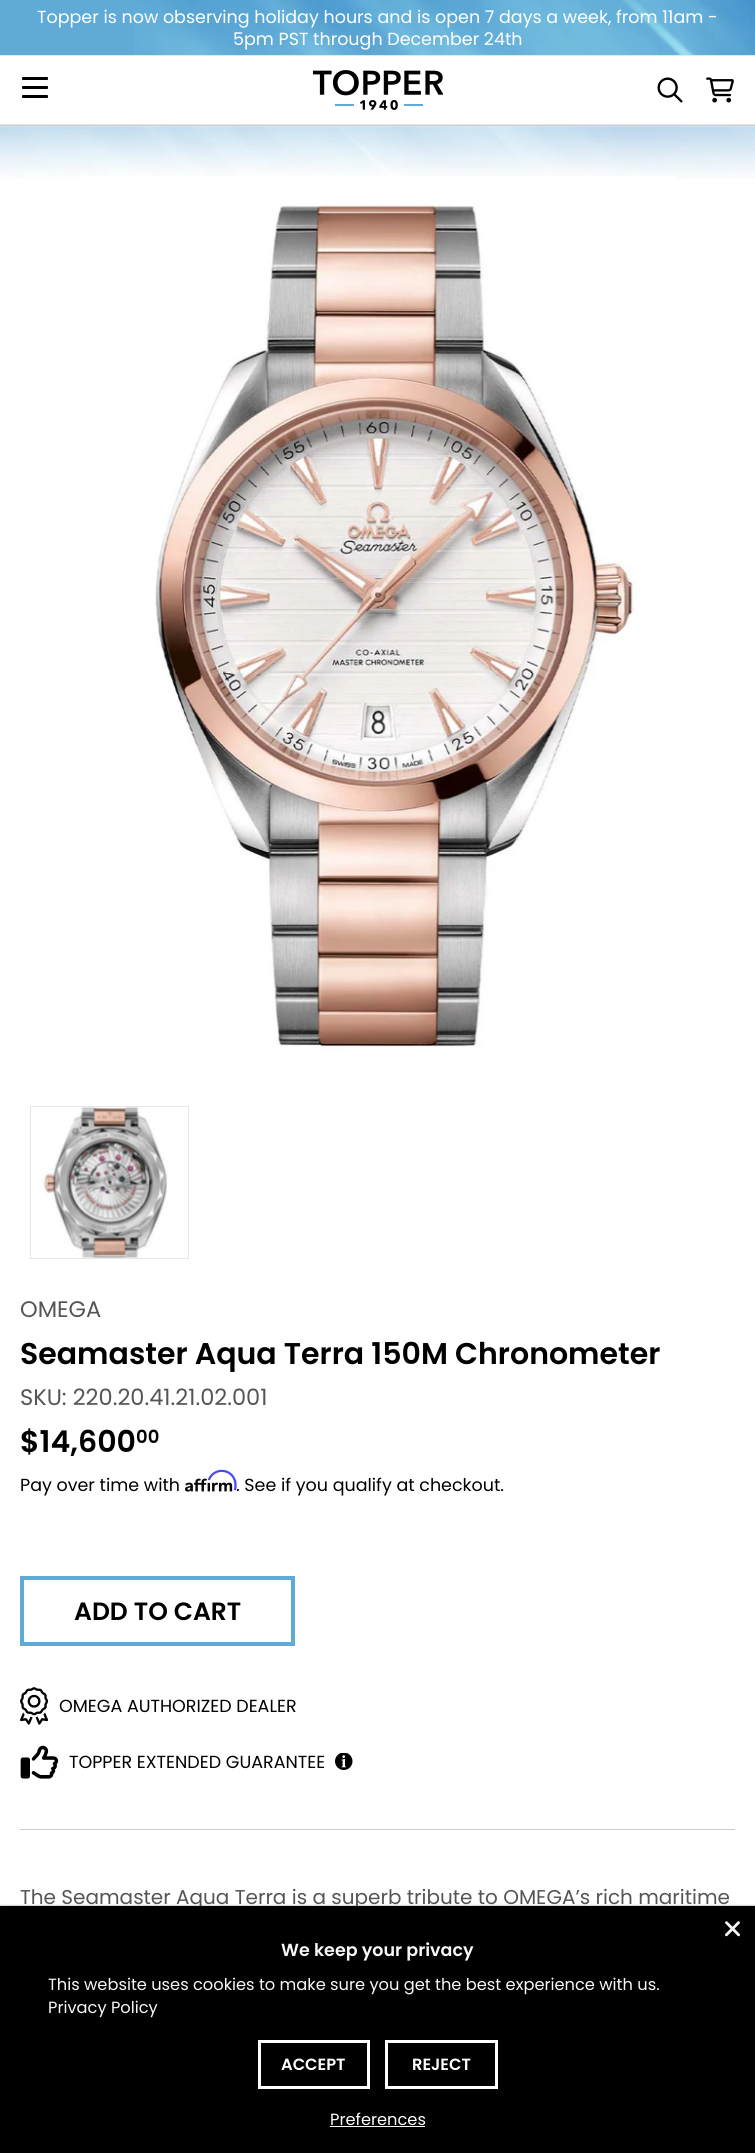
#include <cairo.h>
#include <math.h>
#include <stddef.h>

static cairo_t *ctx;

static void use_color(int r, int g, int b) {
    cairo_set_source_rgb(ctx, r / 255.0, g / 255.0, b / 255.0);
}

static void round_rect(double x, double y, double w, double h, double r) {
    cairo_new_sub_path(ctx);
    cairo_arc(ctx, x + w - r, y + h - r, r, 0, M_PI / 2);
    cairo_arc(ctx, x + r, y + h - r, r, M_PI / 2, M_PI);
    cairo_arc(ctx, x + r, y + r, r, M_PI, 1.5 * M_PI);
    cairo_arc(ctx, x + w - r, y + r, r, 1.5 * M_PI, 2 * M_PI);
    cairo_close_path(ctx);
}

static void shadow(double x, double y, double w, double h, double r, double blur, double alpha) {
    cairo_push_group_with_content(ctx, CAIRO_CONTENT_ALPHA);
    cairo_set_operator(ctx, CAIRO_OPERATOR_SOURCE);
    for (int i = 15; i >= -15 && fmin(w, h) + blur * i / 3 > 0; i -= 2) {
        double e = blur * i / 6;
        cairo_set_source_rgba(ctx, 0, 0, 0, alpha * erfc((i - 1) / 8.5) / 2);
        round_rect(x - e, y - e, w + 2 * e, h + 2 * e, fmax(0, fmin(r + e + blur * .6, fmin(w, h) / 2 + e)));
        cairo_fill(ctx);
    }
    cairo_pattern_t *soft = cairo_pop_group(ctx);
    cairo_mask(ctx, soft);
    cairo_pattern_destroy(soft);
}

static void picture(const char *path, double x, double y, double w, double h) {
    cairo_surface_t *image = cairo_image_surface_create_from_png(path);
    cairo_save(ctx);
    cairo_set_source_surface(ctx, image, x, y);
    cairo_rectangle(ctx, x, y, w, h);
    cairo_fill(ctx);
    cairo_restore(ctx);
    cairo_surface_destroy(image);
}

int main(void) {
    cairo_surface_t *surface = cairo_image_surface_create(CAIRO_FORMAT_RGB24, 755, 2153);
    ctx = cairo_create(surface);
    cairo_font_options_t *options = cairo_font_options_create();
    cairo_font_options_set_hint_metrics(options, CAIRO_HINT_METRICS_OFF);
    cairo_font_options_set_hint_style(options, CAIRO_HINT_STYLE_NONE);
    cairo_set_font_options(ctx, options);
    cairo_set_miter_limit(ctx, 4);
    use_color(255, 255, 255);
    cairo_paint(ctx);
    use_color(95, 170, 215);
    cairo_rectangle(ctx, 0, 0, 134, 55);
    cairo_fill(ctx);
    picture("img1.png", 134, 0, 621, 55);
    cairo_select_font_face(ctx, "Poppins", CAIRO_FONT_SLANT_NORMAL, CAIRO_FONT_WEIGHT_NORMAL);
    cairo_set_font_size(ctx, 17.5);
    use_color(255, 255, 255);
    cairo_move_to(ctx, 37, 23);
    cairo_show_text(ctx, "Topper is now observing holiday hours and is open 7 days a week, from 11am -");
    cairo_move_to(ctx, 233, 45);
    cairo_show_text(ctx, "5pm PST through December 24th");
    use_color(204, 204, 204);
    cairo_rectangle(ctx, 0, 125, 755, 1);
    cairo_fill(ctx);
    use_color(229, 231, 235);
    cairo_rectangle(ctx, 0, 55, 755, 1);
    cairo_fill(ctx);
    cairo_rectangle(ctx, 0, 124, 755, 1);
    cairo_fill(ctx);
    use_color(0, 0, 0);
    round_rect(22, 77, 26, 3, 1);
    cairo_fill(ctx);
    round_rect(22, 86, 26, 3, 1);
    cairo_fill(ctx);
    round_rect(22, 95, 26, 3, 1);
    cairo_fill(ctx);
    picture("img2.png", 313, 70, 130, 40);
    picture("img3.png", 657, 77, 26, 26);
    picture("img4.png", 706, 77, 28, 26);
    picture("img5.png", 0, 126, 755, 53);
    picture("img6.png", 79, 176, 598, 874);
    cairo_rectangle(ctx, 30.5, 1106.5, 158, 152);
    use_color(229, 231, 235);
    cairo_set_line_width(ctx, 1);
    cairo_stroke(ctx);
    picture("img7.png", 43, 1107, 125, 151);
    cairo_set_font_size(ctx, 22.5);
    use_color(85, 85, 85);
    cairo_move_to(ctx, 20, 1317);
    cairo_show_text(ctx, "OMEGA");
    cairo_select_font_face(ctx, "Poppins SemiBold", CAIRO_FONT_SLANT_NORMAL, CAIRO_FONT_WEIGHT_NORMAL);
    cairo_set_font_size(ctx, 30);
    use_color(0, 0, 0);
    cairo_move_to(ctx, 20, 1364);
    cairo_show_text(ctx, "Seamaster Aqua Terra 150M Chronometer");
    cairo_select_font_face(ctx, "Poppins", CAIRO_FONT_SLANT_NORMAL, CAIRO_FONT_WEIGHT_NORMAL);
    cairo_set_font_size(ctx, 22.5);
    use_color(85, 85, 85);
    cairo_move_to(ctx, 20, 1405);
    cairo_show_text(ctx, "SKU: 220.20.41.21.02.001");
    cairo_select_font_face(ctx, "Poppins SemiBold", CAIRO_FONT_SLANT_NORMAL, CAIRO_FONT_WEIGHT_NORMAL);
    cairo_set_font_size(ctx, 30);
    use_color(0, 0, 0);
    cairo_move_to(ctx, 20, 1452);
    cairo_show_text(ctx, "$14,600");
    cairo_set_font_size(ctx, 18);
    cairo_move_to(ctx, 136, 1443);
    cairo_show_text(ctx, "00");
    cairo_select_font_face(ctx, "Poppins", CAIRO_FONT_SLANT_NORMAL, CAIRO_FONT_WEIGHT_NORMAL);
    cairo_set_font_size(ctx, 17.5);
    cairo_move_to(ctx, 20, 1491);
    cairo_show_text(ctx, "Pay over time with");
    picture("img9.png", 185, 1478, 48, 14);
    picture("img8.png", 207, 1469, 30, 22);
    cairo_move_to(ctx, 236, 1491);
    cairo_show_text(ctx, ". See if you qualify at checkout.");
    cairo_rectangle(ctx, 22, 1578, 271, 66);
    use_color(95, 170, 215);
    cairo_set_line_width(ctx, 4);
    cairo_stroke(ctx);
    cairo_select_font_face(ctx, "Poppins SemiBold", CAIRO_FONT_SLANT_NORMAL, CAIRO_FONT_WEIGHT_NORMAL);
    cairo_set_font_size(ctx, 25);
    use_color(0, 0, 0);
    cairo_move_to(ctx, 74, 1620);
    cairo_show_text(ctx, "ADD TO CART");
    picture("img10.png", 20, 1687, 29, 38);
    cairo_select_font_face(ctx, "Poppins", CAIRO_FONT_SLANT_NORMAL, CAIRO_FONT_WEIGHT_NORMAL);
    cairo_set_font_size(ctx, 17.5);
    cairo_move_to(ctx, 59, 1712);
    cairo_show_text(ctx, "OMEGA AUTHORIZED DEALER");
    picture("img11.png", 20, 1745, 39, 34);
    cairo_move_to(ctx, 69, 1768);
    cairo_show_text(ctx, "TOPPER EXTENDED GUARANTEE");
    picture("img12.png", 335, 1753, 18, 17);
    use_color(204, 204, 204);
    cairo_rectangle(ctx, 20, 1829, 715, 1);
    cairo_fill(ctx);
    cairo_set_font_size(ctx, 20);
    use_color(85, 85, 85);
    cairo_move_to(ctx, 20, 1904);
    cairo_show_text(ctx, "The Seamaster Aqua Terra is a superb tribute to OMEGA’s rich maritime");
    use_color(0, 0, 0);
    shadow(0, 1906, 755, 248, 0, 1, 0.5);
    use_color(0, 0, 0);
    cairo_rectangle(ctx, 0, 1906, 755, 247);
    cairo_fill(ctx);
    picture("img13.png", 725, 1921, 15, 16);
    cairo_select_font_face(ctx, "Poppins SemiBold", CAIRO_FONT_SLANT_NORMAL, CAIRO_FONT_WEIGHT_NORMAL);
    cairo_set_font_size(ctx, 17.5);
    use_color(248, 248, 248);
    cairo_move_to(ctx, 281, 1956);
    cairo_show_text(ctx, "We keep your privacy");
    cairo_select_font_face(ctx, "Poppins", CAIRO_FONT_SLANT_NORMAL, CAIRO_FONT_WEIGHT_NORMAL);
    cairo_set_font_size(ctx, 16.25);
    cairo_move_to(ctx, 48, 1990);
    cairo_show_text(ctx, "This website uses cookies to make sure you get the best experience with us.");
    cairo_move_to(ctx, 48, 2013);
    cairo_show_text(ctx, "Privacy Policy");
    cairo_rectangle(ctx, 259.5, 2041.5, 109, 46);
    use_color(255, 255, 255);
    cairo_set_line_width(ctx, 3);
    cairo_stroke(ctx);
    cairo_select_font_face(ctx, "Poppins SemiBold", CAIRO_FONT_SLANT_NORMAL, CAIRO_FONT_WEIGHT_NORMAL);
    cairo_move_to(ctx, 281, 2070);
    cairo_show_text(ctx, "ACCEPT");
    cairo_rectangle(ctx, 386.5, 2041.5, 110, 46);
    cairo_stroke(ctx);
    cairo_move_to(ctx, 412, 2070);
    cairo_show_text(ctx, "REJECT");
    cairo_select_font_face(ctx, "Poppins", CAIRO_FONT_SLANT_NORMAL, CAIRO_FONT_WEIGHT_NORMAL);
    cairo_move_to(ctx, 330, 2125);
    cairo_show_text(ctx, "Preferences");
    cairo_rectangle(ctx, 330, 2126, 95, 1);
    cairo_fill(ctx);
    cairo_surface_write_to_png(surface, "result.png");
    cairo_font_options_destroy(options);
    cairo_destroy(ctx);
    cairo_surface_destroy(surface);
    return 0;
}
